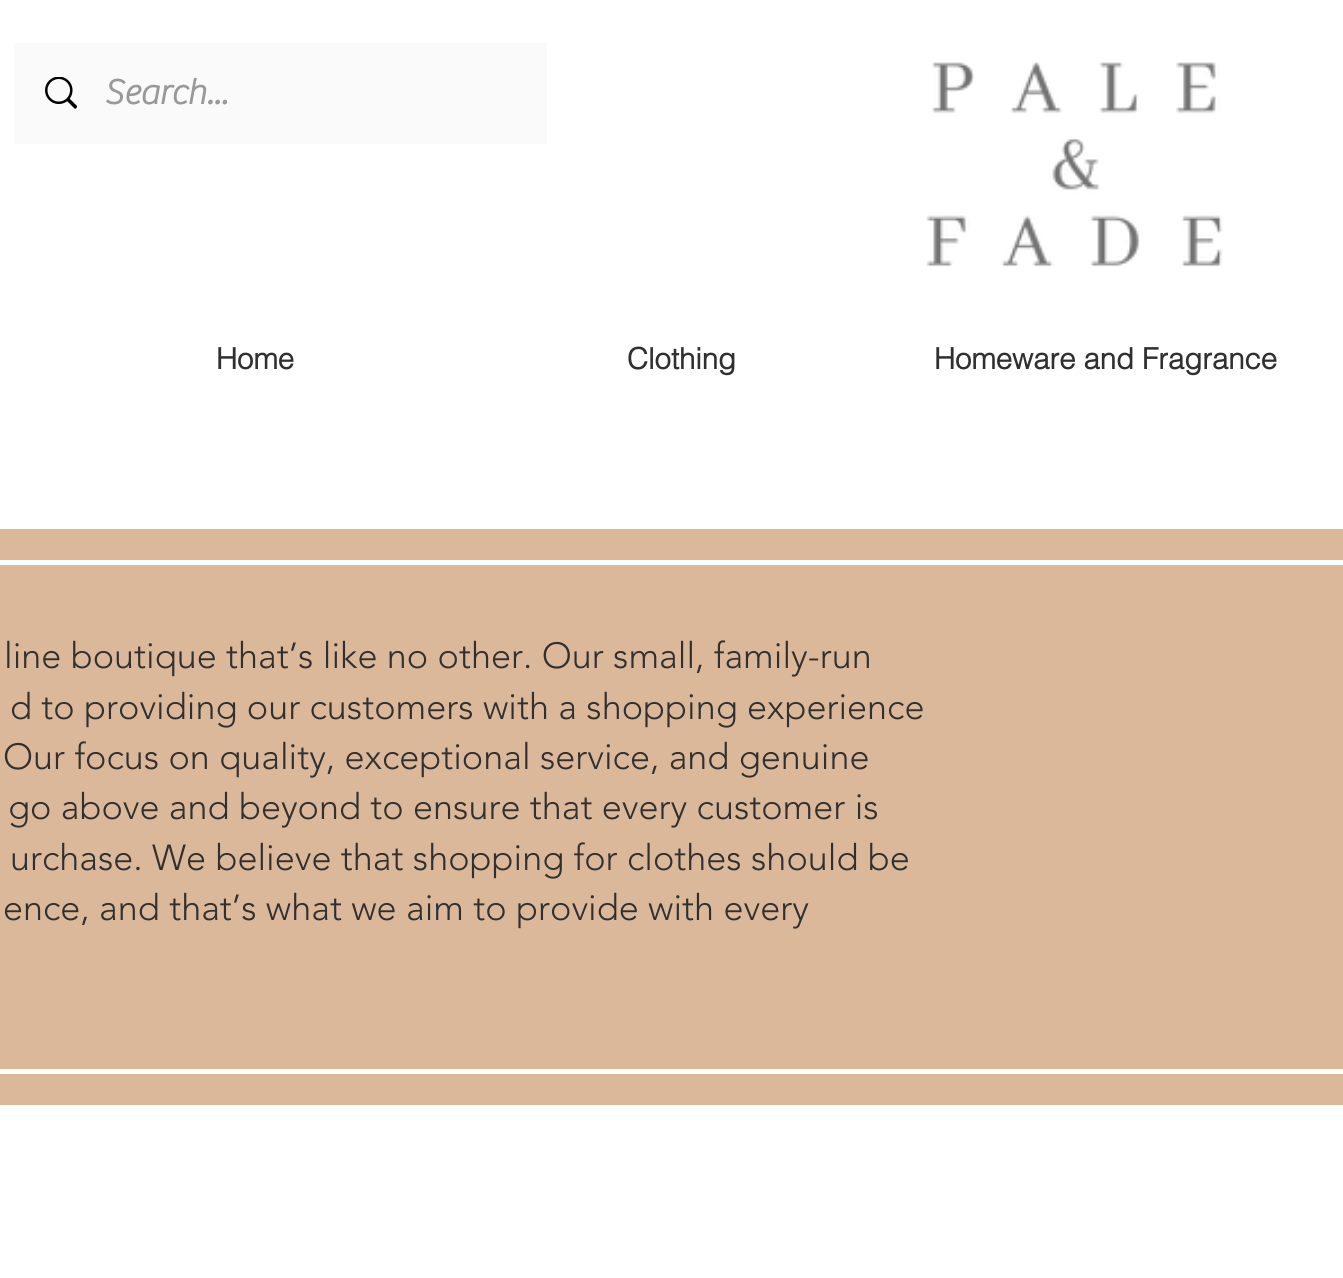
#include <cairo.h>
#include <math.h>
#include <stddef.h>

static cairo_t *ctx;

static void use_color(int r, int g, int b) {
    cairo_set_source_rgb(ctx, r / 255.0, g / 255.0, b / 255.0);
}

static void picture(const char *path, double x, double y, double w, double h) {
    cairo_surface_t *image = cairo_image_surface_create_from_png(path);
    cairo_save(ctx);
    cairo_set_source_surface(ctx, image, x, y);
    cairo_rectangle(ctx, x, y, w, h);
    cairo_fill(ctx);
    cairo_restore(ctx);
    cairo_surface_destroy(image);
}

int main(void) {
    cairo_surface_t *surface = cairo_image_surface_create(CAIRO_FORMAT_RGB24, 1343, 1278);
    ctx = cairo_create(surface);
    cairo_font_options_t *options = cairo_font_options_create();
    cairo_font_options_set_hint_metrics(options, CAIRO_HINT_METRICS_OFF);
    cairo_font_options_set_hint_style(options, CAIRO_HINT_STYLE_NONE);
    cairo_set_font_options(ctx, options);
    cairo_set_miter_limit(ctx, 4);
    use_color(255, 255, 255);
    cairo_paint(ctx);
    use_color(250, 250, 250);
    cairo_rectangle(ctx, 14, 43, 533, 101);
    cairo_fill(ctx);
    picture("img1.png", 45, 77, 32, 32);
    cairo_select_font_face(ctx, "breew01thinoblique", CAIRO_FONT_SLANT_NORMAL, CAIRO_FONT_WEIGHT_BOLD);
    cairo_set_font_size(ctx, 36);
    use_color(153, 153, 153);
    cairo_move_to(ctx, 104, 104);
    cairo_show_text(ctx, "Search...");
    picture("img2.png", 926, 62, 297, 205);
    cairo_select_font_face(ctx, "helvetica", CAIRO_FONT_SLANT_NORMAL, CAIRO_FONT_WEIGHT_BOLD);
    cairo_set_font_size(ctx, 29.25);
    use_color(48, 48, 48);
    cairo_move_to(ctx, 216, 369);
    cairo_show_text(ctx, "Home");
    cairo_move_to(ctx, 627, 369);
    cairo_show_text(ctx, "Clothing");
    cairo_move_to(ctx, 934, 369);
    cairo_show_text(ctx, "Homeware and Fragrance");
    use_color(219, 184, 154);
    cairo_rectangle(ctx, 0, 529, 1343, 576);
    cairo_fill(ctx);
    use_color(255, 255, 255);
    cairo_rectangle(ctx, 0, 560, 1343, 5);
    cairo_fill(ctx);
    cairo_rectangle(ctx, 0, 1069, 1343, 5);
    cairo_fill(ctx);
    cairo_select_font_face(ctx, "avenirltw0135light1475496 Light", CAIRO_FONT_SLANT_NORMAL, CAIRO_FONT_WEIGHT_NORMAL);
    cairo_set_font_size(ctx, 36);
    use_color(48, 48, 48);
    cairo_move_to(ctx, 4, 668);
    cairo_show_text(ctx, "line boutique that’s like no other. Our small, family-run");
    cairo_move_to(ctx, 10, 719);
    cairo_show_text(ctx, "d to providing our customers with a shopping experience");
    cairo_move_to(ctx, 3, 769);
    cairo_show_text(ctx, "Our focus on quality, exceptional service, and genuine");
    cairo_move_to(ctx, 8, 819);
    cairo_show_text(ctx, "go above and beyond to ensure that every customer is");
    cairo_move_to(ctx, 10, 870);
    cairo_show_text(ctx, "urchase. We believe that shopping for clothes should be");
    cairo_move_to(ctx, 3, 920);
    cairo_show_text(ctx, "ence, and that’s what we aim to provide with every");
    cairo_surface_write_to_png(surface, "result.png");
    cairo_font_options_destroy(options);
    cairo_destroy(ctx);
    cairo_surface_destroy(surface);
    return 0;
}
